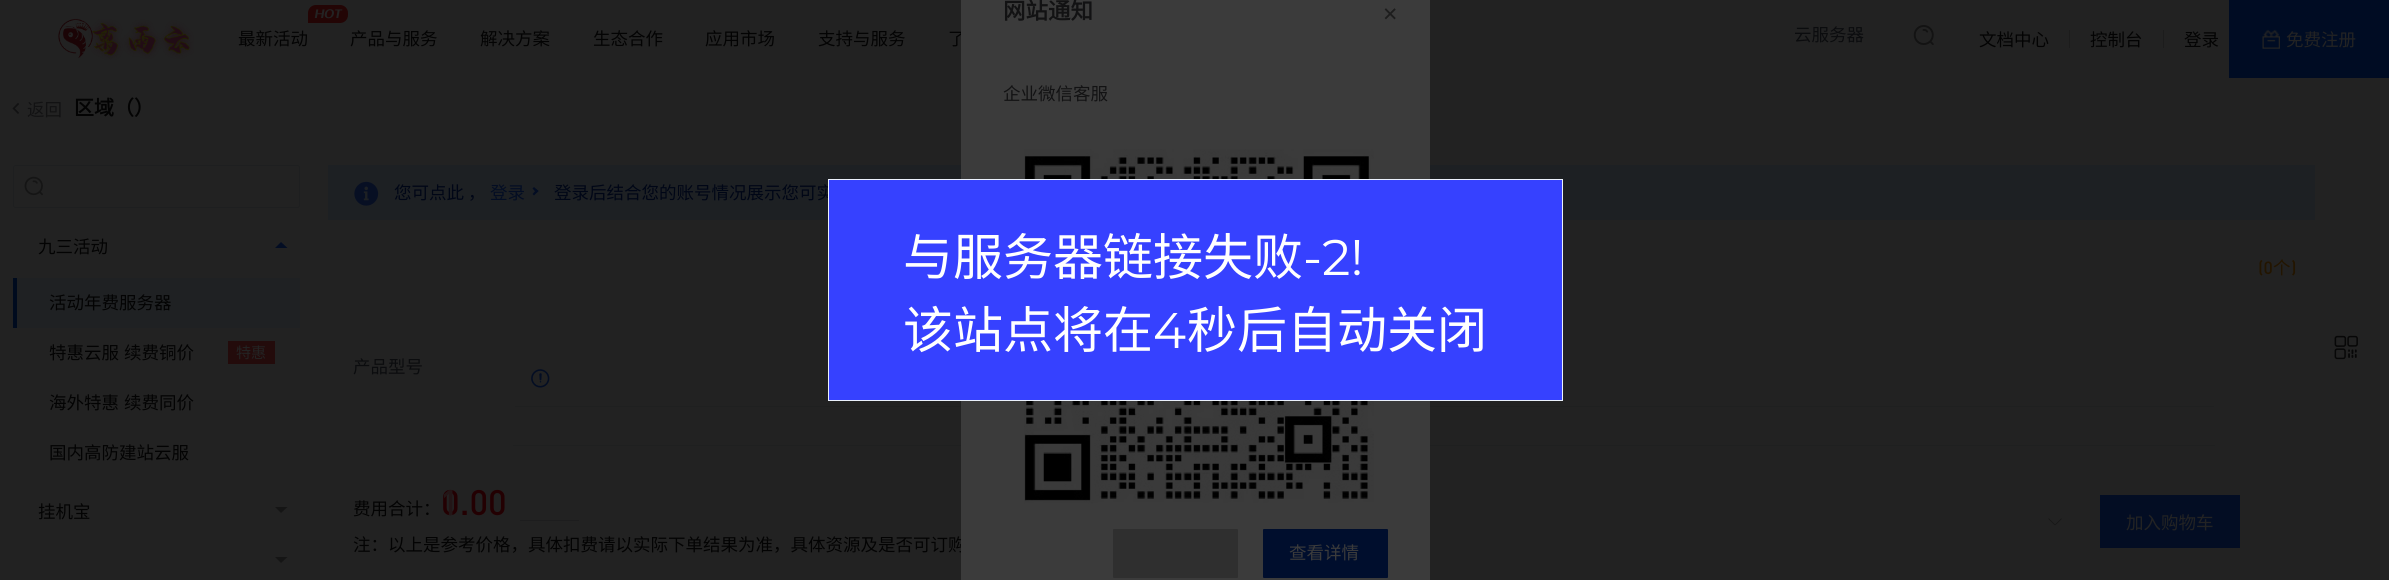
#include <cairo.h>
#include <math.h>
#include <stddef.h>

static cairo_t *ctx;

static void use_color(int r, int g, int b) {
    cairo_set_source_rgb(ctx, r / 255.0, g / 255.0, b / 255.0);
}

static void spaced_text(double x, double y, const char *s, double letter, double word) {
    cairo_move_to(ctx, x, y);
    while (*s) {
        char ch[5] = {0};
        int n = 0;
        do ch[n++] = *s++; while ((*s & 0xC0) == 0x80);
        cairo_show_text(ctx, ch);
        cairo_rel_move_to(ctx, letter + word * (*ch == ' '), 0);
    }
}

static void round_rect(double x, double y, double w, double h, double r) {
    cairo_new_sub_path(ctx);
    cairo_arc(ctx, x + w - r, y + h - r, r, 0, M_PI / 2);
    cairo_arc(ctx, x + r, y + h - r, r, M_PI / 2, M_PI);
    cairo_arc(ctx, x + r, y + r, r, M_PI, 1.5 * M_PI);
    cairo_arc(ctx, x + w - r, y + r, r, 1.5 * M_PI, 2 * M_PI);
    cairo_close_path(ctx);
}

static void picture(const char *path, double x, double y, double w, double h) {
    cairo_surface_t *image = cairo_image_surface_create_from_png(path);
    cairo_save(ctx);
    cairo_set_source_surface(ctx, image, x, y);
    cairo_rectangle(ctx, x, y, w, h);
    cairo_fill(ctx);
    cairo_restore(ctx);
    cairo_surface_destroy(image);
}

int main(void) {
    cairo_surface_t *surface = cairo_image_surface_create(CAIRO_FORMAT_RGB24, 2389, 580);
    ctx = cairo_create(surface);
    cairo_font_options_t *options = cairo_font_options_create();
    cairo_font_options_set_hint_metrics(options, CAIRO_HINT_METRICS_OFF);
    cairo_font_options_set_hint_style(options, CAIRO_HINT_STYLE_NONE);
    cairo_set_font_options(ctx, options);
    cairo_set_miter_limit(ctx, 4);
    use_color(34, 34, 34);
    cairo_paint(ctx);
    cairo_select_font_face(ctx, "Noto Sans CJK SC", CAIRO_FONT_SLANT_NORMAL, CAIRO_FONT_WEIGHT_NORMAL);
    cairo_set_font_size(ctx, 17.5);
    use_color(3, 3, 3);
    cairo_move_to(ctx, 948, 45);
    cairo_show_text(ctx, "了");
    use_color(29, 32, 35);
    cairo_rectangle(ctx, 328, 165, 1987, 55);
    cairo_fill(ctx);
    use_color(31, 32, 32);
    cairo_rectangle(ctx, 515, 406, 1699, 1);
    cairo_fill(ctx);
    cairo_rectangle(ctx, 513, 445, 1702, 1);
    cairo_fill(ctx);
    use_color(3, 3, 3);
    cairo_move_to(ctx, 353, 551);
    cairo_show_text(ctx, "注：以上是参考价格，具体扣费请以实际下单结果为准，具体资源及是否可订购");
    use_color(59, 59, 59);
    cairo_rectangle(ctx, 961, 0, 469, 580);
    cairo_fill(ctx);
    cairo_select_font_face(ctx, "Noto Sans CJK SC", CAIRO_FONT_SLANT_NORMAL, CAIRO_FONT_WEIGHT_BOLD);
    cairo_set_font_size(ctx, 22.5);
    use_color(18, 18, 19);
    cairo_move_to(ctx, 1003, 19);
    cairo_show_text(ctx, "网站通知");
    cairo_select_font_face(ctx, "Montserrat", CAIRO_FONT_SLANT_NORMAL, CAIRO_FONT_WEIGHT_NORMAL);
    cairo_set_font_size(ctx, 32);
    use_color(29, 29, 29);
    cairo_move_to(ctx, 1381, 25);
    cairo_show_text(ctx, "×");
    cairo_select_font_face(ctx, "Noto Sans CJK SC", CAIRO_FONT_SLANT_NORMAL, CAIRO_FONT_WEIGHT_NORMAL);
    cairo_set_font_size(ctx, 17.5);
    use_color(18, 18, 19);
    cairo_move_to(ctx, 1003, 100);
    cairo_show_text(ctx, "企业微信客服");
    picture("img1.png", 1024, 149, 350, 355);
    use_color(47, 47, 47);
    round_rect(1113, 529, 125, 49, 1);
    cairo_fill(ctx);
    use_color(0, 14, 45);
    round_rect(1263, 529, 125, 49, 1);
    cairo_fill(ctx);
    use_color(59, 59, 59);
    cairo_move_to(ctx, 1289, 559);
    cairo_show_text(ctx, "查看详情");
    picture("img2.png", 58, 18, 136, 42);
    use_color(35, 5, 5);
    cairo_new_path(ctx);
    cairo_move_to(ctx, 316, 5);
    cairo_line_to(ctx, 340, 5);
    cairo_curve_to(ctx, 344.5, 5, 348, 8.5, 348, 13);
    cairo_line_to(ctx, 348, 15);
    cairo_curve_to(ctx, 348, 19.5, 344.5, 23, 340, 23);
    cairo_line_to(ctx, 308, 23);
    cairo_line_to(ctx, 308, 13);
    cairo_curve_to(ctx, 308, 8.5, 311.5, 5, 316, 5);
    cairo_close_path(ctx);
    cairo_fill(ctx);
    cairo_select_font_face(ctx, "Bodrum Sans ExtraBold", CAIRO_FONT_SLANT_ITALIC, CAIRO_FONT_WEIGHT_NORMAL);
    cairo_set_font_size(ctx, 12.5);
    use_color(35, 35, 35);
    cairo_move_to(ctx, 314, 18);
    cairo_show_text(ctx, "HOT");
    cairo_select_font_face(ctx, "Noto Sans CJK SC", CAIRO_FONT_SLANT_NORMAL, CAIRO_FONT_WEIGHT_NORMAL);
    cairo_set_font_size(ctx, 17.5);
    use_color(3, 3, 3);
    cairo_move_to(ctx, 238, 45);
    cairo_show_text(ctx, "最新活动");
    cairo_move_to(ctx, 350, 45);
    cairo_show_text(ctx, "产品与服务");
    cairo_move_to(ctx, 480, 45);
    cairo_show_text(ctx, "解决方案");
    cairo_move_to(ctx, 593, 45);
    cairo_show_text(ctx, "生态合作");
    cairo_move_to(ctx, 705, 45);
    cairo_show_text(ctx, "应用市场");
    cairo_move_to(ctx, 818, 45);
    cairo_show_text(ctx, "支持与服务");
    use_color(11, 12, 14);
    cairo_move_to(ctx, 1794, 41);
    cairo_show_text(ctx, "云服务器");
    picture("img3.png", 1913, 25, 21, 20);
    use_color(3, 3, 3);
    cairo_move_to(ctx, 1979, 46);
    cairo_show_text(ctx, "文档中心");
    use_color(28, 28, 28);
    cairo_rectangle(ctx, 2069, 30, 1, 18);
    cairo_fill(ctx);
    use_color(3, 3, 3);
    cairo_move_to(ctx, 2090, 46);
    cairo_show_text(ctx, "控制台");
    use_color(28, 28, 28);
    cairo_rectangle(ctx, 2163, 30, 1, 18);
    cairo_fill(ctx);
    use_color(3, 3, 3);
    cairo_move_to(ctx, 2184, 46);
    cairo_show_text(ctx, "登录");
    use_color(0, 12, 35);
    cairo_rectangle(ctx, 2229, 0, 160, 78);
    cairo_fill(ctx);
    picture("img4.png", 2262, 29, 18, 20);
    use_color(35, 35, 35);
    cairo_move_to(ctx, 2286, 46);
    cairo_show_text(ctx, "免费注册");
    picture("img5.png", 12, 103, 7, 11);
    use_color(18, 18, 19);
    cairo_move_to(ctx, 27, 116);
    cairo_show_text(ctx, "返回");
    cairo_select_font_face(ctx, "Noto Sans CJK SC", CAIRO_FONT_SLANT_NORMAL, CAIRO_FONT_WEIGHT_BOLD);
    cairo_set_font_size(ctx, 20);
    use_color(3, 3, 3);
    cairo_move_to(ctx, 74, 115);
    cairo_show_text(ctx, "区域（）");
    round_rect(13.5, 165.5, 286, 42, 2);
    use_color(30, 31, 32);
    cairo_set_line_width(ctx, 1);
    cairo_stroke(ctx);
    picture("img6.png", 24, 176, 19, 20);
    cairo_select_font_face(ctx, "Noto Sans CJK SC", CAIRO_FONT_SLANT_NORMAL, CAIRO_FONT_WEIGHT_NORMAL);
    cairo_set_font_size(ctx, 17.5);
    use_color(3, 3, 3);
    cairo_move_to(ctx, 38, 253);
    cairo_show_text(ctx, "九三活动");
    use_color(3, 13, 35);
    cairo_new_path(ctx);
    cairo_move_to(ctx, 287.5, 248);
    cairo_line_to(ctx, 275, 248);
    cairo_line_to(ctx, 281, 242);
    cairo_close_path(ctx);
    cairo_fill(ctx);
    use_color(31, 33, 35);
    cairo_rectangle(ctx, 17, 278, 283, 50);
    cairo_fill(ctx);
    use_color(0, 11, 30);
    cairo_rectangle(ctx, 13, 278, 4, 50);
    cairo_fill(ctx);
    use_color(3, 3, 3);
    cairo_move_to(ctx, 49, 309);
    cairo_show_text(ctx, "活动年费服务器");
    spaced_text(49, 359, "特惠云服 续费铜价", 0, 1);
    use_color(35, 11, 11);
    cairo_rectangle(ctx, 228, 341, 47, 23);
    cairo_fill(ctx);
    cairo_set_font_size(ctx, 15);
    use_color(35, 35, 35);
    cairo_move_to(ctx, 236, 358);
    cairo_show_text(ctx, "特惠");
    cairo_set_font_size(ctx, 17.5);
    use_color(3, 3, 3);
    spaced_text(49, 409, "海外特惠 续费同价", 0, 1);
    cairo_move_to(ctx, 49, 459);
    cairo_show_text(ctx, "国内高防建站云服");
    cairo_move_to(ctx, 38, 518);
    cairo_show_text(ctx, "挂机宝");
    use_color(21, 21, 21);
    cairo_new_path(ctx);
    cairo_move_to(ctx, 275, 507);
    cairo_line_to(ctx, 287.5, 507);
    cairo_line_to(ctx, 281, 513);
    cairo_close_path(ctx);
    cairo_move_to(ctx, 275, 557);
    cairo_line_to(ctx, 287.5, 557);
    cairo_line_to(ctx, 281, 563);
    cairo_close_path(ctx);
    cairo_fill(ctx);
    picture("img7.png", 354, 181, 25, 25);
    use_color(0, 6, 22);
    cairo_move_to(ctx, 394, 199);
    cairo_show_text(ctx, "您可点此 ，");
    use_color(3, 13, 35);
    cairo_move_to(ctx, 490, 199);
    cairo_show_text(ctx, "登录");
    cairo_new_path(ctx);
    cairo_move_to(ctx, 532.5, 188.5);
    cairo_line_to(ctx, 534, 187);
    cairo_line_to(ctx, 538.5, 191);
    cairo_line_to(ctx, 536.5, 193);
    cairo_close_path(ctx);
    cairo_fill(ctx);
    cairo_new_path(ctx);
    cairo_move_to(ctx, 532.5, 194);
    cairo_line_to(ctx, 536.5, 189.5);
    cairo_line_to(ctx, 538.5, 191);
    cairo_line_to(ctx, 534, 195.5);
    cairo_close_path(ctx);
    cairo_fill(ctx);
    use_color(0, 6, 22);
    cairo_move_to(ctx, 554, 199);
    cairo_show_text(ctx, "登录后结合您的账号情况展示您可实");
    cairo_select_font_face(ctx, "DIN Medium", CAIRO_FONT_SLANT_NORMAL, CAIRO_FONT_WEIGHT_NORMAL);
    use_color(35, 21, 0);
    cairo_move_to(ctx, 2258, 274);
    cairo_show_text(ctx, "(0");
    cairo_select_font_face(ctx, "Noto Sans CJK SC", CAIRO_FONT_SLANT_NORMAL, CAIRO_FONT_WEIGHT_NORMAL);
    cairo_move_to(ctx, 2273, 274);
    cairo_show_text(ctx, "个");
    cairo_select_font_face(ctx, "DIN Medium", CAIRO_FONT_SLANT_NORMAL, CAIRO_FONT_WEIGHT_NORMAL);
    cairo_move_to(ctx, 2291, 274);
    cairo_show_text(ctx, ")");
    cairo_select_font_face(ctx, "Noto Sans CJK SC", CAIRO_FONT_SLANT_NORMAL, CAIRO_FONT_WEIGHT_NORMAL);
    use_color(11, 12, 14);
    cairo_move_to(ctx, 353, 373);
    cairo_show_text(ctx, "产品型号");
    picture("img8.png", 531, 369, 19, 19);
    cairo_select_font_face(ctx, "DIN Medium", CAIRO_FONT_SLANT_NORMAL, CAIRO_FONT_WEIGHT_NORMAL);
    cairo_set_font_size(ctx, 35);
    use_color(35, 0, 2);
    cairo_move_to(ctx, 441, 515);
    cairo_show_text(ctx, "0.00");
    cairo_select_font_face(ctx, "Noto Sans CJK SC", CAIRO_FONT_SLANT_NORMAL, CAIRO_FONT_WEIGHT_NORMAL);
    cairo_set_font_size(ctx, 17.5);
    use_color(3, 3, 3);
    cairo_move_to(ctx, 353, 515);
    cairo_show_text(ctx, "费用合计：");
    cairo_select_font_face(ctx, "DIN Medium", CAIRO_FONT_SLANT_NORMAL, CAIRO_FONT_WEIGHT_NORMAL);
    cairo_set_font_size(ctx, 35);
    use_color(35, 22, 23);
    cairo_move_to(ctx, 440, 515);
    cairo_show_text(ctx, "1");
    use_color(29, 29, 30);
    cairo_rectangle(ctx, 520, 520, 59, 1);
    cairo_fill(ctx);
    picture("img9.png", 2048, 518, 14, 8);
    use_color(3, 13, 35);
    cairo_rectangle(ctx, 2100, 495, 140, 53);
    cairo_fill(ctx);
    cairo_select_font_face(ctx, "Noto Sans CJK SC", CAIRO_FONT_SLANT_NORMAL, CAIRO_FONT_WEIGHT_NORMAL);
    cairo_set_font_size(ctx, 17.5);
    use_color(35, 35, 35);
    cairo_move_to(ctx, 2126, 529);
    cairo_show_text(ctx, "加入购物车");
    use_color(54, 65, 255);
    cairo_rectangle(ctx, 828.5, 179.5, 734, 221);
    cairo_fill_preserve(ctx);
    use_color(235, 241, 252);
    cairo_stroke(ctx);
    cairo_set_font_size(ctx, 50);
    use_color(255, 255, 255);
    cairo_move_to(ctx, 903, 275);
    cairo_show_text(ctx, "与服务器链接失败");
    cairo_select_font_face(ctx, "Montserrat", CAIRO_FONT_SLANT_NORMAL, CAIRO_FONT_WEIGHT_NORMAL);
    cairo_move_to(ctx, 1303, 275);
    cairo_show_text(ctx, "-2!");
    cairo_select_font_face(ctx, "Noto Sans CJK SC", CAIRO_FONT_SLANT_NORMAL, CAIRO_FONT_WEIGHT_NORMAL);
    cairo_move_to(ctx, 903, 348);
    cairo_show_text(ctx, "该站点将在");
    cairo_select_font_face(ctx, "Montserrat", CAIRO_FONT_SLANT_NORMAL, CAIRO_FONT_WEIGHT_NORMAL);
    cairo_move_to(ctx, 1153, 348);
    cairo_show_text(ctx, "4");
    cairo_select_font_face(ctx, "Noto Sans CJK SC", CAIRO_FONT_SLANT_NORMAL, CAIRO_FONT_WEIGHT_NORMAL);
    cairo_move_to(ctx, 1187, 348);
    cairo_show_text(ctx, "秒后自动关闭");
    picture("img10.png", 2334, 335, 24, 25);
    cairo_surface_write_to_png(surface, "result.png");
    cairo_font_options_destroy(options);
    cairo_destroy(ctx);
    cairo_surface_destroy(surface);
    return 0;
}
